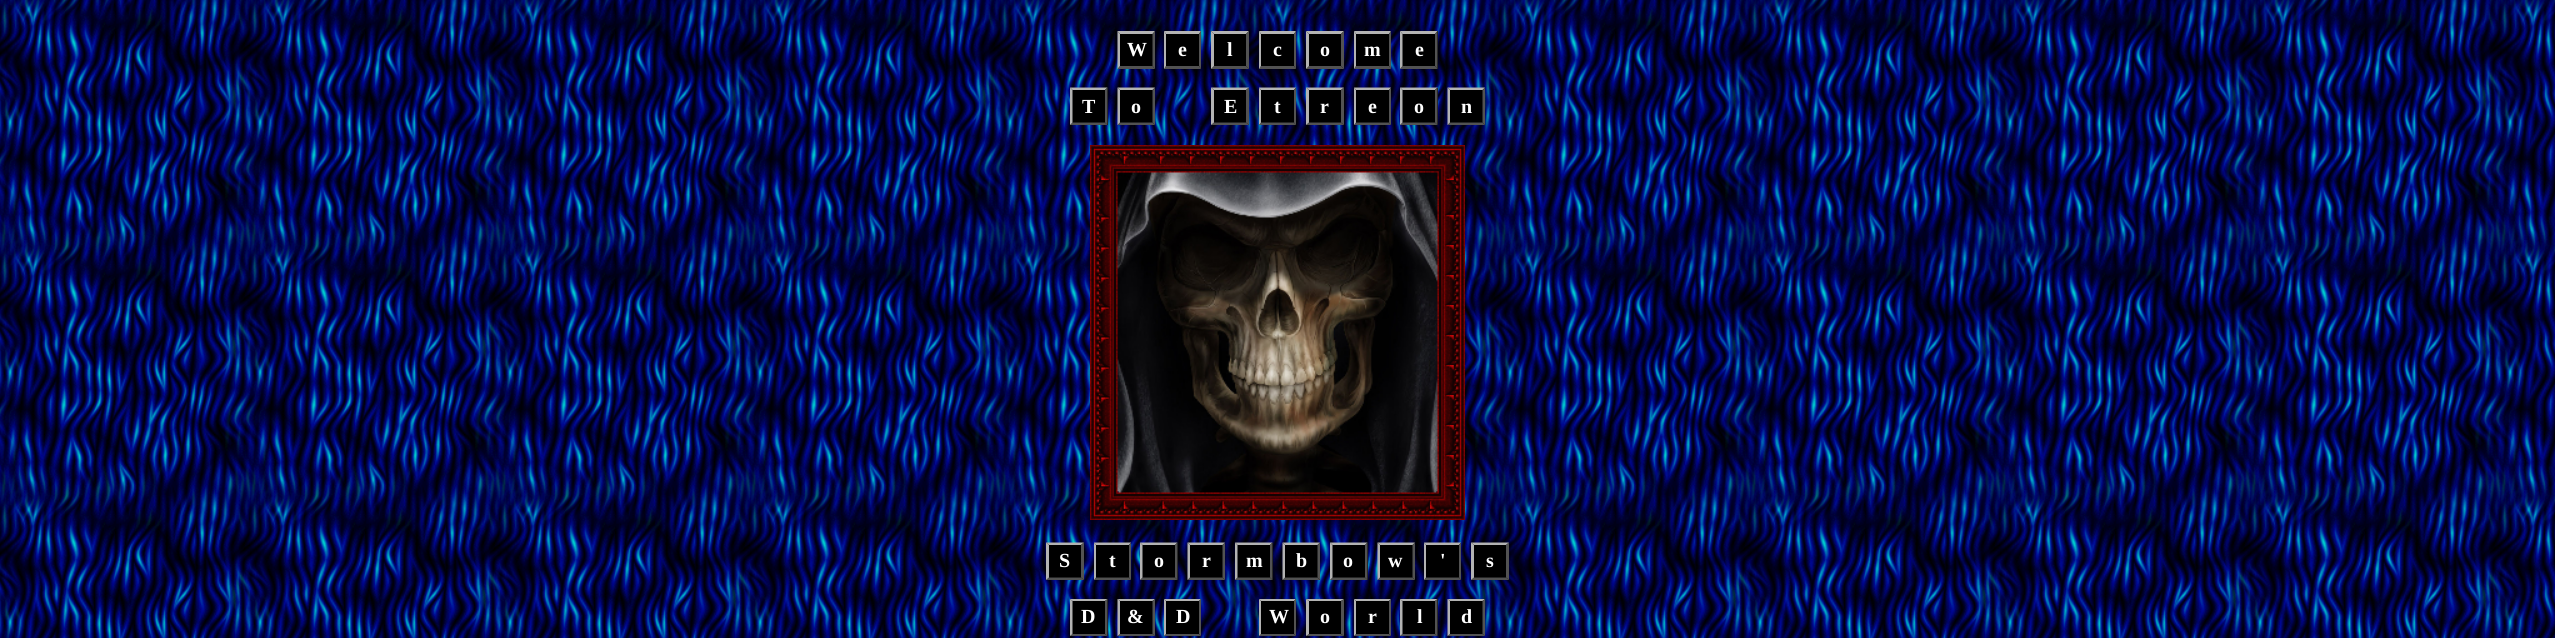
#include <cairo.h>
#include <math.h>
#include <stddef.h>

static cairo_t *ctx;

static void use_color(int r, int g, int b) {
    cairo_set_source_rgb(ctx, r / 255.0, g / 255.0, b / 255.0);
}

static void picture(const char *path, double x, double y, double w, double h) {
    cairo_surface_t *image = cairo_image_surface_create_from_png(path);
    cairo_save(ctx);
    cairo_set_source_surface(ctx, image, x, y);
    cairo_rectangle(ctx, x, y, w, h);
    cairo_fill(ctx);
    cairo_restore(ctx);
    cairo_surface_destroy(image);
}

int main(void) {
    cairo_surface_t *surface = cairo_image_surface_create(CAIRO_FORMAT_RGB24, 2555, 638);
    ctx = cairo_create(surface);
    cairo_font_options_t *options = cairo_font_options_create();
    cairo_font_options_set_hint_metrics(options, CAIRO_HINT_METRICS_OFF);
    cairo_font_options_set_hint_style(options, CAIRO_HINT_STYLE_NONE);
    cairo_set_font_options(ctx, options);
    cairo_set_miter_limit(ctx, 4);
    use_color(255, 255, 255);
    cairo_paint(ctx);
    picture("img1.png", 0, 0, 2555, 638);
    use_color(0, 0, 0);
    cairo_rectangle(ctx, 1118, 31, 37, 38);
    cairo_fill(ctx);
    use_color(179, 179, 179);
    cairo_new_path(ctx);
    cairo_move_to(ctx, 1117.5, 31);
    cairo_line_to(ctx, 1155, 31);
    cairo_line_to(ctx, 1152.5, 34);
    cairo_line_to(ctx, 1120, 34);
    cairo_close_path(ctx);
    cairo_fill(ctx);
    use_color(82, 82, 82);
    cairo_new_path(ctx);
    cairo_move_to(ctx, 1155, 31);
    cairo_line_to(ctx, 1155, 69);
    cairo_line_to(ctx, 1152.5, 66);
    cairo_line_to(ctx, 1152.5, 34);
    cairo_close_path(ctx);
    cairo_fill(ctx);
    cairo_new_path(ctx);
    cairo_move_to(ctx, 1155, 69);
    cairo_line_to(ctx, 1117.5, 69);
    cairo_line_to(ctx, 1120, 66);
    cairo_line_to(ctx, 1152.5, 66);
    cairo_close_path(ctx);
    cairo_fill(ctx);
    use_color(179, 179, 179);
    cairo_new_path(ctx);
    cairo_move_to(ctx, 1117.5, 69);
    cairo_line_to(ctx, 1117.5, 31);
    cairo_line_to(ctx, 1120, 34);
    cairo_line_to(ctx, 1120, 66);
    cairo_close_path(ctx);
    cairo_fill(ctx);
    cairo_select_font_face(ctx, "Liberation Serif", CAIRO_FONT_SLANT_NORMAL, CAIRO_FONT_WEIGHT_BOLD);
    cairo_set_font_size(ctx, 20);
    use_color(255, 255, 255);
    cairo_move_to(ctx, 1127, 56);
    cairo_show_text(ctx, "W");
    use_color(0, 0, 0);
    cairo_rectangle(ctx, 1164, 31, 37, 38);
    cairo_fill(ctx);
    use_color(179, 179, 179);
    cairo_new_path(ctx);
    cairo_move_to(ctx, 1164, 31);
    cairo_line_to(ctx, 1201, 31);
    cairo_line_to(ctx, 1199, 34);
    cairo_line_to(ctx, 1166, 34);
    cairo_close_path(ctx);
    cairo_fill(ctx);
    use_color(82, 82, 82);
    cairo_new_path(ctx);
    cairo_move_to(ctx, 1201, 31);
    cairo_line_to(ctx, 1201, 69);
    cairo_line_to(ctx, 1199, 66);
    cairo_line_to(ctx, 1199, 34);
    cairo_close_path(ctx);
    cairo_fill(ctx);
    cairo_new_path(ctx);
    cairo_move_to(ctx, 1201, 69);
    cairo_line_to(ctx, 1164, 69);
    cairo_line_to(ctx, 1166, 66);
    cairo_line_to(ctx, 1199, 66);
    cairo_close_path(ctx);
    cairo_fill(ctx);
    use_color(179, 179, 179);
    cairo_new_path(ctx);
    cairo_move_to(ctx, 1164, 69);
    cairo_line_to(ctx, 1164, 31);
    cairo_line_to(ctx, 1166, 34);
    cairo_line_to(ctx, 1166, 66);
    cairo_close_path(ctx);
    cairo_fill(ctx);
    use_color(255, 255, 255);
    cairo_move_to(ctx, 1178, 56);
    cairo_show_text(ctx, "e");
    use_color(0, 0, 0);
    cairo_rectangle(ctx, 1211, 31, 38, 38);
    cairo_fill(ctx);
    use_color(179, 179, 179);
    cairo_new_path(ctx);
    cairo_move_to(ctx, 1211, 31);
    cairo_line_to(ctx, 1249, 31);
    cairo_line_to(ctx, 1246, 34);
    cairo_line_to(ctx, 1214, 34);
    cairo_close_path(ctx);
    cairo_fill(ctx);
    use_color(82, 82, 82);
    cairo_new_path(ctx);
    cairo_move_to(ctx, 1249, 31);
    cairo_line_to(ctx, 1249, 69);
    cairo_line_to(ctx, 1246, 66);
    cairo_line_to(ctx, 1246, 34);
    cairo_close_path(ctx);
    cairo_fill(ctx);
    cairo_new_path(ctx);
    cairo_move_to(ctx, 1249, 69);
    cairo_line_to(ctx, 1211, 69);
    cairo_line_to(ctx, 1214, 66);
    cairo_line_to(ctx, 1246, 66);
    cairo_close_path(ctx);
    cairo_fill(ctx);
    use_color(179, 179, 179);
    cairo_new_path(ctx);
    cairo_move_to(ctx, 1211, 69);
    cairo_line_to(ctx, 1211, 31);
    cairo_line_to(ctx, 1214, 34);
    cairo_line_to(ctx, 1214, 66);
    cairo_close_path(ctx);
    cairo_fill(ctx);
    use_color(255, 255, 255);
    cairo_move_to(ctx, 1227, 56);
    cairo_show_text(ctx, "l");
    use_color(0, 0, 0);
    cairo_rectangle(ctx, 1259, 31, 37, 38);
    cairo_fill(ctx);
    use_color(179, 179, 179);
    cairo_new_path(ctx);
    cairo_move_to(ctx, 1259, 31);
    cairo_line_to(ctx, 1296, 31);
    cairo_line_to(ctx, 1294, 34);
    cairo_line_to(ctx, 1261, 34);
    cairo_close_path(ctx);
    cairo_fill(ctx);
    use_color(82, 82, 82);
    cairo_new_path(ctx);
    cairo_move_to(ctx, 1296, 31);
    cairo_line_to(ctx, 1296, 69);
    cairo_line_to(ctx, 1294, 66);
    cairo_line_to(ctx, 1294, 34);
    cairo_close_path(ctx);
    cairo_fill(ctx);
    cairo_new_path(ctx);
    cairo_move_to(ctx, 1296, 69);
    cairo_line_to(ctx, 1259, 69);
    cairo_line_to(ctx, 1261, 66);
    cairo_line_to(ctx, 1294, 66);
    cairo_close_path(ctx);
    cairo_fill(ctx);
    use_color(179, 179, 179);
    cairo_new_path(ctx);
    cairo_move_to(ctx, 1259, 69);
    cairo_line_to(ctx, 1259, 31);
    cairo_line_to(ctx, 1261, 34);
    cairo_line_to(ctx, 1261, 66);
    cairo_close_path(ctx);
    cairo_fill(ctx);
    use_color(255, 255, 255);
    cairo_move_to(ctx, 1273, 56);
    cairo_show_text(ctx, "c");
    use_color(0, 0, 0);
    cairo_rectangle(ctx, 1306, 31, 38, 38);
    cairo_fill(ctx);
    use_color(179, 179, 179);
    cairo_new_path(ctx);
    cairo_move_to(ctx, 1306, 31);
    cairo_line_to(ctx, 1344, 31);
    cairo_line_to(ctx, 1341, 34);
    cairo_line_to(ctx, 1309, 34);
    cairo_close_path(ctx);
    cairo_fill(ctx);
    use_color(82, 82, 82);
    cairo_new_path(ctx);
    cairo_move_to(ctx, 1344, 31);
    cairo_line_to(ctx, 1344, 69);
    cairo_line_to(ctx, 1341, 66);
    cairo_line_to(ctx, 1341, 34);
    cairo_close_path(ctx);
    cairo_fill(ctx);
    cairo_new_path(ctx);
    cairo_move_to(ctx, 1344, 69);
    cairo_line_to(ctx, 1306, 69);
    cairo_line_to(ctx, 1309, 66);
    cairo_line_to(ctx, 1341, 66);
    cairo_close_path(ctx);
    cairo_fill(ctx);
    use_color(179, 179, 179);
    cairo_new_path(ctx);
    cairo_move_to(ctx, 1306, 69);
    cairo_line_to(ctx, 1306, 31);
    cairo_line_to(ctx, 1309, 34);
    cairo_line_to(ctx, 1309, 66);
    cairo_close_path(ctx);
    cairo_fill(ctx);
    use_color(255, 255, 255);
    cairo_move_to(ctx, 1320, 56);
    cairo_show_text(ctx, "o");
    use_color(0, 0, 0);
    cairo_rectangle(ctx, 1354, 31, 37, 38);
    cairo_fill(ctx);
    use_color(179, 179, 179);
    cairo_new_path(ctx);
    cairo_move_to(ctx, 1354, 31);
    cairo_line_to(ctx, 1391, 31);
    cairo_line_to(ctx, 1389, 34);
    cairo_line_to(ctx, 1356, 34);
    cairo_close_path(ctx);
    cairo_fill(ctx);
    use_color(82, 82, 82);
    cairo_new_path(ctx);
    cairo_move_to(ctx, 1391, 31);
    cairo_line_to(ctx, 1391, 69);
    cairo_line_to(ctx, 1389, 66);
    cairo_line_to(ctx, 1389, 34);
    cairo_close_path(ctx);
    cairo_fill(ctx);
    cairo_new_path(ctx);
    cairo_move_to(ctx, 1391, 69);
    cairo_line_to(ctx, 1354, 69);
    cairo_line_to(ctx, 1356, 66);
    cairo_line_to(ctx, 1389, 66);
    cairo_close_path(ctx);
    cairo_fill(ctx);
    use_color(179, 179, 179);
    cairo_new_path(ctx);
    cairo_move_to(ctx, 1354, 69);
    cairo_line_to(ctx, 1354, 31);
    cairo_line_to(ctx, 1356, 34);
    cairo_line_to(ctx, 1356, 66);
    cairo_close_path(ctx);
    cairo_fill(ctx);
    use_color(255, 255, 255);
    cairo_move_to(ctx, 1364, 56);
    cairo_show_text(ctx, "m");
    use_color(0, 0, 0);
    cairo_rectangle(ctx, 1400, 31, 38, 38);
    cairo_fill(ctx);
    use_color(179, 179, 179);
    cairo_new_path(ctx);
    cairo_move_to(ctx, 1400, 31);
    cairo_line_to(ctx, 1437.5, 31);
    cairo_line_to(ctx, 1435, 34);
    cairo_line_to(ctx, 1402.5, 34);
    cairo_close_path(ctx);
    cairo_fill(ctx);
    use_color(82, 82, 82);
    cairo_new_path(ctx);
    cairo_move_to(ctx, 1437.5, 31);
    cairo_line_to(ctx, 1437.5, 69);
    cairo_line_to(ctx, 1435, 66);
    cairo_line_to(ctx, 1435, 34);
    cairo_close_path(ctx);
    cairo_fill(ctx);
    cairo_new_path(ctx);
    cairo_move_to(ctx, 1437.5, 69);
    cairo_line_to(ctx, 1400, 69);
    cairo_line_to(ctx, 1402.5, 66);
    cairo_line_to(ctx, 1435, 66);
    cairo_close_path(ctx);
    cairo_fill(ctx);
    use_color(179, 179, 179);
    cairo_new_path(ctx);
    cairo_move_to(ctx, 1400, 69);
    cairo_line_to(ctx, 1400, 31);
    cairo_line_to(ctx, 1402.5, 34);
    cairo_line_to(ctx, 1402.5, 66);
    cairo_close_path(ctx);
    cairo_fill(ctx);
    use_color(255, 255, 255);
    cairo_move_to(ctx, 1415, 56);
    cairo_show_text(ctx, "e");
    use_color(0, 0, 0);
    cairo_rectangle(ctx, 1070, 88, 38, 37);
    cairo_fill(ctx);
    use_color(179, 179, 179);
    cairo_new_path(ctx);
    cairo_move_to(ctx, 1070, 87.5);
    cairo_line_to(ctx, 1107.5, 87.5);
    cairo_line_to(ctx, 1105, 90);
    cairo_line_to(ctx, 1072.5, 90);
    cairo_close_path(ctx);
    cairo_fill(ctx);
    use_color(82, 82, 82);
    cairo_new_path(ctx);
    cairo_move_to(ctx, 1107.5, 87.5);
    cairo_line_to(ctx, 1107.5, 125);
    cairo_line_to(ctx, 1105, 122.5);
    cairo_line_to(ctx, 1105, 90);
    cairo_close_path(ctx);
    cairo_fill(ctx);
    cairo_new_path(ctx);
    cairo_move_to(ctx, 1107.5, 125);
    cairo_line_to(ctx, 1070, 125);
    cairo_line_to(ctx, 1072.5, 122.5);
    cairo_line_to(ctx, 1105, 122.5);
    cairo_close_path(ctx);
    cairo_fill(ctx);
    use_color(179, 179, 179);
    cairo_new_path(ctx);
    cairo_move_to(ctx, 1070, 125);
    cairo_line_to(ctx, 1070, 87.5);
    cairo_line_to(ctx, 1072.5, 90);
    cairo_line_to(ctx, 1072.5, 122.5);
    cairo_close_path(ctx);
    cairo_fill(ctx);
    use_color(255, 255, 255);
    cairo_move_to(ctx, 1082, 113);
    cairo_show_text(ctx, "T");
    use_color(0, 0, 0);
    cairo_rectangle(ctx, 1118, 88, 37, 37);
    cairo_fill(ctx);
    use_color(179, 179, 179);
    cairo_new_path(ctx);
    cairo_move_to(ctx, 1117.5, 87.5);
    cairo_line_to(ctx, 1155, 87.5);
    cairo_line_to(ctx, 1152.5, 90);
    cairo_line_to(ctx, 1120, 90);
    cairo_close_path(ctx);
    cairo_fill(ctx);
    use_color(82, 82, 82);
    cairo_new_path(ctx);
    cairo_move_to(ctx, 1155, 87.5);
    cairo_line_to(ctx, 1155, 125);
    cairo_line_to(ctx, 1152.5, 122.5);
    cairo_line_to(ctx, 1152.5, 90);
    cairo_close_path(ctx);
    cairo_fill(ctx);
    cairo_new_path(ctx);
    cairo_move_to(ctx, 1155, 125);
    cairo_line_to(ctx, 1117.5, 125);
    cairo_line_to(ctx, 1120, 122.5);
    cairo_line_to(ctx, 1152.5, 122.5);
    cairo_close_path(ctx);
    cairo_fill(ctx);
    use_color(179, 179, 179);
    cairo_new_path(ctx);
    cairo_move_to(ctx, 1117.5, 125);
    cairo_line_to(ctx, 1117.5, 87.5);
    cairo_line_to(ctx, 1120, 90);
    cairo_line_to(ctx, 1120, 122.5);
    cairo_close_path(ctx);
    cairo_fill(ctx);
    use_color(255, 255, 255);
    cairo_move_to(ctx, 1131, 113);
    cairo_show_text(ctx, "o");
    use_color(0, 0, 0);
    cairo_rectangle(ctx, 1211, 88, 38, 37);
    cairo_fill(ctx);
    use_color(179, 179, 179);
    cairo_new_path(ctx);
    cairo_move_to(ctx, 1211, 87.5);
    cairo_line_to(ctx, 1249, 87.5);
    cairo_line_to(ctx, 1246, 90);
    cairo_line_to(ctx, 1214, 90);
    cairo_close_path(ctx);
    cairo_fill(ctx);
    use_color(82, 82, 82);
    cairo_new_path(ctx);
    cairo_move_to(ctx, 1249, 87.5);
    cairo_line_to(ctx, 1249, 125);
    cairo_line_to(ctx, 1246, 122.5);
    cairo_line_to(ctx, 1246, 90);
    cairo_close_path(ctx);
    cairo_fill(ctx);
    cairo_new_path(ctx);
    cairo_move_to(ctx, 1249, 125);
    cairo_line_to(ctx, 1211, 125);
    cairo_line_to(ctx, 1214, 122.5);
    cairo_line_to(ctx, 1246, 122.5);
    cairo_close_path(ctx);
    cairo_fill(ctx);
    use_color(179, 179, 179);
    cairo_new_path(ctx);
    cairo_move_to(ctx, 1211, 125);
    cairo_line_to(ctx, 1211, 87.5);
    cairo_line_to(ctx, 1214, 90);
    cairo_line_to(ctx, 1214, 122.5);
    cairo_close_path(ctx);
    cairo_fill(ctx);
    use_color(255, 255, 255);
    cairo_move_to(ctx, 1224, 113);
    cairo_show_text(ctx, "E");
    use_color(0, 0, 0);
    cairo_rectangle(ctx, 1259, 88, 37, 37);
    cairo_fill(ctx);
    use_color(179, 179, 179);
    cairo_new_path(ctx);
    cairo_move_to(ctx, 1259, 87.5);
    cairo_line_to(ctx, 1296, 87.5);
    cairo_line_to(ctx, 1294, 90);
    cairo_line_to(ctx, 1261, 90);
    cairo_close_path(ctx);
    cairo_fill(ctx);
    use_color(82, 82, 82);
    cairo_new_path(ctx);
    cairo_move_to(ctx, 1296, 87.5);
    cairo_line_to(ctx, 1296, 125);
    cairo_line_to(ctx, 1294, 122.5);
    cairo_line_to(ctx, 1294, 90);
    cairo_close_path(ctx);
    cairo_fill(ctx);
    cairo_new_path(ctx);
    cairo_move_to(ctx, 1296, 125);
    cairo_line_to(ctx, 1259, 125);
    cairo_line_to(ctx, 1261, 122.5);
    cairo_line_to(ctx, 1294, 122.5);
    cairo_close_path(ctx);
    cairo_fill(ctx);
    use_color(179, 179, 179);
    cairo_new_path(ctx);
    cairo_move_to(ctx, 1259, 125);
    cairo_line_to(ctx, 1259, 87.5);
    cairo_line_to(ctx, 1261, 90);
    cairo_line_to(ctx, 1261, 122.5);
    cairo_close_path(ctx);
    cairo_fill(ctx);
    use_color(255, 255, 255);
    cairo_move_to(ctx, 1274, 113);
    cairo_show_text(ctx, "t");
    use_color(0, 0, 0);
    cairo_rectangle(ctx, 1306, 88, 38, 37);
    cairo_fill(ctx);
    use_color(179, 179, 179);
    cairo_new_path(ctx);
    cairo_move_to(ctx, 1306, 87.5);
    cairo_line_to(ctx, 1344, 87.5);
    cairo_line_to(ctx, 1341, 90);
    cairo_line_to(ctx, 1309, 90);
    cairo_close_path(ctx);
    cairo_fill(ctx);
    use_color(82, 82, 82);
    cairo_new_path(ctx);
    cairo_move_to(ctx, 1344, 87.5);
    cairo_line_to(ctx, 1344, 125);
    cairo_line_to(ctx, 1341, 122.5);
    cairo_line_to(ctx, 1341, 90);
    cairo_close_path(ctx);
    cairo_fill(ctx);
    cairo_new_path(ctx);
    cairo_move_to(ctx, 1344, 125);
    cairo_line_to(ctx, 1306, 125);
    cairo_line_to(ctx, 1309, 122.5);
    cairo_line_to(ctx, 1341, 122.5);
    cairo_close_path(ctx);
    cairo_fill(ctx);
    use_color(179, 179, 179);
    cairo_new_path(ctx);
    cairo_move_to(ctx, 1306, 125);
    cairo_line_to(ctx, 1306, 87.5);
    cairo_line_to(ctx, 1309, 90);
    cairo_line_to(ctx, 1309, 122.5);
    cairo_close_path(ctx);
    cairo_fill(ctx);
    use_color(255, 255, 255);
    cairo_move_to(ctx, 1320, 113);
    cairo_show_text(ctx, "r");
    use_color(0, 0, 0);
    cairo_rectangle(ctx, 1354, 88, 37, 37);
    cairo_fill(ctx);
    use_color(179, 179, 179);
    cairo_new_path(ctx);
    cairo_move_to(ctx, 1354, 87.5);
    cairo_line_to(ctx, 1391, 87.5);
    cairo_line_to(ctx, 1389, 90);
    cairo_line_to(ctx, 1356, 90);
    cairo_close_path(ctx);
    cairo_fill(ctx);
    use_color(82, 82, 82);
    cairo_new_path(ctx);
    cairo_move_to(ctx, 1391, 87.5);
    cairo_line_to(ctx, 1391, 125);
    cairo_line_to(ctx, 1389, 122.5);
    cairo_line_to(ctx, 1389, 90);
    cairo_close_path(ctx);
    cairo_fill(ctx);
    cairo_new_path(ctx);
    cairo_move_to(ctx, 1391, 125);
    cairo_line_to(ctx, 1354, 125);
    cairo_line_to(ctx, 1356, 122.5);
    cairo_line_to(ctx, 1389, 122.5);
    cairo_close_path(ctx);
    cairo_fill(ctx);
    use_color(179, 179, 179);
    cairo_new_path(ctx);
    cairo_move_to(ctx, 1354, 125);
    cairo_line_to(ctx, 1354, 87.5);
    cairo_line_to(ctx, 1356, 90);
    cairo_line_to(ctx, 1356, 122.5);
    cairo_close_path(ctx);
    cairo_fill(ctx);
    use_color(255, 255, 255);
    cairo_move_to(ctx, 1368, 113);
    cairo_show_text(ctx, "e");
    use_color(0, 0, 0);
    cairo_rectangle(ctx, 1400, 88, 38, 37);
    cairo_fill(ctx);
    use_color(179, 179, 179);
    cairo_new_path(ctx);
    cairo_move_to(ctx, 1400, 87.5);
    cairo_line_to(ctx, 1437.5, 87.5);
    cairo_line_to(ctx, 1435, 90);
    cairo_line_to(ctx, 1402.5, 90);
    cairo_close_path(ctx);
    cairo_fill(ctx);
    use_color(82, 82, 82);
    cairo_new_path(ctx);
    cairo_move_to(ctx, 1437.5, 87.5);
    cairo_line_to(ctx, 1437.5, 125);
    cairo_line_to(ctx, 1435, 122.5);
    cairo_line_to(ctx, 1435, 90);
    cairo_close_path(ctx);
    cairo_fill(ctx);
    cairo_new_path(ctx);
    cairo_move_to(ctx, 1437.5, 125);
    cairo_line_to(ctx, 1400, 125);
    cairo_line_to(ctx, 1402.5, 122.5);
    cairo_line_to(ctx, 1435, 122.5);
    cairo_close_path(ctx);
    cairo_fill(ctx);
    use_color(179, 179, 179);
    cairo_new_path(ctx);
    cairo_move_to(ctx, 1400, 125);
    cairo_line_to(ctx, 1400, 87.5);
    cairo_line_to(ctx, 1402.5, 90);
    cairo_line_to(ctx, 1402.5, 122.5);
    cairo_close_path(ctx);
    cairo_fill(ctx);
    use_color(255, 255, 255);
    cairo_move_to(ctx, 1414, 113);
    cairo_show_text(ctx, "o");
    use_color(0, 0, 0);
    cairo_rectangle(ctx, 1448, 88, 37, 37);
    cairo_fill(ctx);
    use_color(179, 179, 179);
    cairo_new_path(ctx);
    cairo_move_to(ctx, 1447.5, 87.5);
    cairo_line_to(ctx, 1485, 87.5);
    cairo_line_to(ctx, 1482.5, 90);
    cairo_line_to(ctx, 1450, 90);
    cairo_close_path(ctx);
    cairo_fill(ctx);
    use_color(82, 82, 82);
    cairo_new_path(ctx);
    cairo_move_to(ctx, 1485, 87.5);
    cairo_line_to(ctx, 1485, 125);
    cairo_line_to(ctx, 1482.5, 122.5);
    cairo_line_to(ctx, 1482.5, 90);
    cairo_close_path(ctx);
    cairo_fill(ctx);
    cairo_new_path(ctx);
    cairo_move_to(ctx, 1485, 125);
    cairo_line_to(ctx, 1447.5, 125);
    cairo_line_to(ctx, 1450, 122.5);
    cairo_line_to(ctx, 1482.5, 122.5);
    cairo_close_path(ctx);
    cairo_fill(ctx);
    use_color(179, 179, 179);
    cairo_new_path(ctx);
    cairo_move_to(ctx, 1447.5, 125);
    cairo_line_to(ctx, 1447.5, 87.5);
    cairo_line_to(ctx, 1450, 90);
    cairo_line_to(ctx, 1450, 122.5);
    cairo_close_path(ctx);
    cairo_fill(ctx);
    use_color(255, 255, 255);
    cairo_move_to(ctx, 1461, 113);
    cairo_show_text(ctx, "n");
    picture("img2.png", 1090, 145, 375, 375);
    use_color(0, 0, 0);
    cairo_rectangle(ctx, 1046, 543, 38, 37);
    cairo_fill(ctx);
    use_color(179, 179, 179);
    cairo_new_path(ctx);
    cairo_move_to(ctx, 1046, 542.5);
    cairo_line_to(ctx, 1084, 542.5);
    cairo_line_to(ctx, 1081, 545);
    cairo_line_to(ctx, 1049, 545);
    cairo_close_path(ctx);
    cairo_fill(ctx);
    use_color(82, 82, 82);
    cairo_new_path(ctx);
    cairo_move_to(ctx, 1084, 542.5);
    cairo_line_to(ctx, 1084, 580);
    cairo_line_to(ctx, 1081, 577.5);
    cairo_line_to(ctx, 1081, 545);
    cairo_close_path(ctx);
    cairo_fill(ctx);
    cairo_new_path(ctx);
    cairo_move_to(ctx, 1084, 580);
    cairo_line_to(ctx, 1046, 580);
    cairo_line_to(ctx, 1049, 577.5);
    cairo_line_to(ctx, 1081, 577.5);
    cairo_close_path(ctx);
    cairo_fill(ctx);
    use_color(179, 179, 179);
    cairo_new_path(ctx);
    cairo_move_to(ctx, 1046, 580);
    cairo_line_to(ctx, 1046, 542.5);
    cairo_line_to(ctx, 1049, 545);
    cairo_line_to(ctx, 1049, 577.5);
    cairo_close_path(ctx);
    cairo_fill(ctx);
    use_color(255, 255, 255);
    cairo_move_to(ctx, 1059, 567);
    cairo_show_text(ctx, "S");
    use_color(0, 0, 0);
    cairo_rectangle(ctx, 1094, 543, 37, 37);
    cairo_fill(ctx);
    use_color(179, 179, 179);
    cairo_new_path(ctx);
    cairo_move_to(ctx, 1094, 542.5);
    cairo_line_to(ctx, 1131, 542.5);
    cairo_line_to(ctx, 1129, 545);
    cairo_line_to(ctx, 1096, 545);
    cairo_close_path(ctx);
    cairo_fill(ctx);
    use_color(82, 82, 82);
    cairo_new_path(ctx);
    cairo_move_to(ctx, 1131, 542.5);
    cairo_line_to(ctx, 1131, 580);
    cairo_line_to(ctx, 1129, 577.5);
    cairo_line_to(ctx, 1129, 545);
    cairo_close_path(ctx);
    cairo_fill(ctx);
    cairo_new_path(ctx);
    cairo_move_to(ctx, 1131, 580);
    cairo_line_to(ctx, 1094, 580);
    cairo_line_to(ctx, 1096, 577.5);
    cairo_line_to(ctx, 1129, 577.5);
    cairo_close_path(ctx);
    cairo_fill(ctx);
    use_color(179, 179, 179);
    cairo_new_path(ctx);
    cairo_move_to(ctx, 1094, 580);
    cairo_line_to(ctx, 1094, 542.5);
    cairo_line_to(ctx, 1096, 545);
    cairo_line_to(ctx, 1096, 577.5);
    cairo_close_path(ctx);
    cairo_fill(ctx);
    use_color(255, 255, 255);
    cairo_move_to(ctx, 1109, 567);
    cairo_show_text(ctx, "t");
    use_color(0, 0, 0);
    cairo_rectangle(ctx, 1140, 543, 38, 37);
    cairo_fill(ctx);
    use_color(179, 179, 179);
    cairo_new_path(ctx);
    cairo_move_to(ctx, 1140, 542.5);
    cairo_line_to(ctx, 1177.5, 542.5);
    cairo_line_to(ctx, 1175, 545);
    cairo_line_to(ctx, 1142.5, 545);
    cairo_close_path(ctx);
    cairo_fill(ctx);
    use_color(82, 82, 82);
    cairo_new_path(ctx);
    cairo_move_to(ctx, 1177.5, 542.5);
    cairo_line_to(ctx, 1177.5, 580);
    cairo_line_to(ctx, 1175, 577.5);
    cairo_line_to(ctx, 1175, 545);
    cairo_close_path(ctx);
    cairo_fill(ctx);
    cairo_new_path(ctx);
    cairo_move_to(ctx, 1177.5, 580);
    cairo_line_to(ctx, 1140, 580);
    cairo_line_to(ctx, 1142.5, 577.5);
    cairo_line_to(ctx, 1175, 577.5);
    cairo_close_path(ctx);
    cairo_fill(ctx);
    use_color(179, 179, 179);
    cairo_new_path(ctx);
    cairo_move_to(ctx, 1140, 580);
    cairo_line_to(ctx, 1140, 542.5);
    cairo_line_to(ctx, 1142.5, 545);
    cairo_line_to(ctx, 1142.5, 577.5);
    cairo_close_path(ctx);
    cairo_fill(ctx);
    use_color(255, 255, 255);
    cairo_move_to(ctx, 1154, 567);
    cairo_show_text(ctx, "o");
    use_color(0, 0, 0);
    cairo_rectangle(ctx, 1188, 543, 37, 37);
    cairo_fill(ctx);
    use_color(179, 179, 179);
    cairo_new_path(ctx);
    cairo_move_to(ctx, 1187.5, 542.5);
    cairo_line_to(ctx, 1225, 542.5);
    cairo_line_to(ctx, 1222.5, 545);
    cairo_line_to(ctx, 1190, 545);
    cairo_close_path(ctx);
    cairo_fill(ctx);
    use_color(82, 82, 82);
    cairo_new_path(ctx);
    cairo_move_to(ctx, 1225, 542.5);
    cairo_line_to(ctx, 1225, 580);
    cairo_line_to(ctx, 1222.5, 577.5);
    cairo_line_to(ctx, 1222.5, 545);
    cairo_close_path(ctx);
    cairo_fill(ctx);
    cairo_new_path(ctx);
    cairo_move_to(ctx, 1225, 580);
    cairo_line_to(ctx, 1187.5, 580);
    cairo_line_to(ctx, 1190, 577.5);
    cairo_line_to(ctx, 1222.5, 577.5);
    cairo_close_path(ctx);
    cairo_fill(ctx);
    use_color(179, 179, 179);
    cairo_new_path(ctx);
    cairo_move_to(ctx, 1187.5, 580);
    cairo_line_to(ctx, 1187.5, 542.5);
    cairo_line_to(ctx, 1190, 545);
    cairo_line_to(ctx, 1190, 577.5);
    cairo_close_path(ctx);
    cairo_fill(ctx);
    use_color(255, 255, 255);
    cairo_move_to(ctx, 1202, 567);
    cairo_show_text(ctx, "r");
    use_color(0, 0, 0);
    cairo_rectangle(ctx, 1235, 543, 38, 37);
    cairo_fill(ctx);
    use_color(179, 179, 179);
    cairo_new_path(ctx);
    cairo_move_to(ctx, 1235, 542.5);
    cairo_line_to(ctx, 1272.5, 542.5);
    cairo_line_to(ctx, 1270, 545);
    cairo_line_to(ctx, 1237.5, 545);
    cairo_close_path(ctx);
    cairo_fill(ctx);
    use_color(82, 82, 82);
    cairo_new_path(ctx);
    cairo_move_to(ctx, 1272.5, 542.5);
    cairo_line_to(ctx, 1272.5, 580);
    cairo_line_to(ctx, 1270, 577.5);
    cairo_line_to(ctx, 1270, 545);
    cairo_close_path(ctx);
    cairo_fill(ctx);
    cairo_new_path(ctx);
    cairo_move_to(ctx, 1272.5, 580);
    cairo_line_to(ctx, 1235, 580);
    cairo_line_to(ctx, 1237.5, 577.5);
    cairo_line_to(ctx, 1270, 577.5);
    cairo_close_path(ctx);
    cairo_fill(ctx);
    use_color(179, 179, 179);
    cairo_new_path(ctx);
    cairo_move_to(ctx, 1235, 580);
    cairo_line_to(ctx, 1235, 542.5);
    cairo_line_to(ctx, 1237.5, 545);
    cairo_line_to(ctx, 1237.5, 577.5);
    cairo_close_path(ctx);
    cairo_fill(ctx);
    use_color(255, 255, 255);
    cairo_move_to(ctx, 1246, 567);
    cairo_show_text(ctx, "m");
    use_color(0, 0, 0);
    cairo_rectangle(ctx, 1283, 543, 37, 37);
    cairo_fill(ctx);
    use_color(179, 179, 179);
    cairo_new_path(ctx);
    cairo_move_to(ctx, 1282.5, 542.5);
    cairo_line_to(ctx, 1320, 542.5);
    cairo_line_to(ctx, 1317.5, 545);
    cairo_line_to(ctx, 1285, 545);
    cairo_close_path(ctx);
    cairo_fill(ctx);
    use_color(82, 82, 82);
    cairo_new_path(ctx);
    cairo_move_to(ctx, 1320, 542.5);
    cairo_line_to(ctx, 1320, 580);
    cairo_line_to(ctx, 1317.5, 577.5);
    cairo_line_to(ctx, 1317.5, 545);
    cairo_close_path(ctx);
    cairo_fill(ctx);
    cairo_new_path(ctx);
    cairo_move_to(ctx, 1320, 580);
    cairo_line_to(ctx, 1282.5, 580);
    cairo_line_to(ctx, 1285, 577.5);
    cairo_line_to(ctx, 1317.5, 577.5);
    cairo_close_path(ctx);
    cairo_fill(ctx);
    use_color(179, 179, 179);
    cairo_new_path(ctx);
    cairo_move_to(ctx, 1282.5, 580);
    cairo_line_to(ctx, 1282.5, 542.5);
    cairo_line_to(ctx, 1285, 545);
    cairo_line_to(ctx, 1285, 577.5);
    cairo_close_path(ctx);
    cairo_fill(ctx);
    use_color(255, 255, 255);
    cairo_move_to(ctx, 1296, 567);
    cairo_show_text(ctx, "b");
    use_color(0, 0, 0);
    cairo_rectangle(ctx, 1330, 543, 38, 37);
    cairo_fill(ctx);
    use_color(179, 179, 179);
    cairo_new_path(ctx);
    cairo_move_to(ctx, 1330, 542.5);
    cairo_line_to(ctx, 1367.5, 542.5);
    cairo_line_to(ctx, 1365, 545);
    cairo_line_to(ctx, 1332.5, 545);
    cairo_close_path(ctx);
    cairo_fill(ctx);
    use_color(82, 82, 82);
    cairo_new_path(ctx);
    cairo_move_to(ctx, 1367.5, 542.5);
    cairo_line_to(ctx, 1367.5, 580);
    cairo_line_to(ctx, 1365, 577.5);
    cairo_line_to(ctx, 1365, 545);
    cairo_close_path(ctx);
    cairo_fill(ctx);
    cairo_new_path(ctx);
    cairo_move_to(ctx, 1367.5, 580);
    cairo_line_to(ctx, 1330, 580);
    cairo_line_to(ctx, 1332.5, 577.5);
    cairo_line_to(ctx, 1365, 577.5);
    cairo_close_path(ctx);
    cairo_fill(ctx);
    use_color(179, 179, 179);
    cairo_new_path(ctx);
    cairo_move_to(ctx, 1330, 580);
    cairo_line_to(ctx, 1330, 542.5);
    cairo_line_to(ctx, 1332.5, 545);
    cairo_line_to(ctx, 1332.5, 577.5);
    cairo_close_path(ctx);
    cairo_fill(ctx);
    use_color(255, 255, 255);
    cairo_move_to(ctx, 1343, 567);
    cairo_show_text(ctx, "o");
    use_color(0, 0, 0);
    cairo_rectangle(ctx, 1378, 543, 37, 37);
    cairo_fill(ctx);
    use_color(179, 179, 179);
    cairo_new_path(ctx);
    cairo_move_to(ctx, 1377.5, 542.5);
    cairo_line_to(ctx, 1415, 542.5);
    cairo_line_to(ctx, 1412.5, 545);
    cairo_line_to(ctx, 1380, 545);
    cairo_close_path(ctx);
    cairo_fill(ctx);
    use_color(82, 82, 82);
    cairo_new_path(ctx);
    cairo_move_to(ctx, 1415, 542.5);
    cairo_line_to(ctx, 1415, 580);
    cairo_line_to(ctx, 1412.5, 577.5);
    cairo_line_to(ctx, 1412.5, 545);
    cairo_close_path(ctx);
    cairo_fill(ctx);
    cairo_new_path(ctx);
    cairo_move_to(ctx, 1415, 580);
    cairo_line_to(ctx, 1377.5, 580);
    cairo_line_to(ctx, 1380, 577.5);
    cairo_line_to(ctx, 1412.5, 577.5);
    cairo_close_path(ctx);
    cairo_fill(ctx);
    use_color(179, 179, 179);
    cairo_new_path(ctx);
    cairo_move_to(ctx, 1377.5, 580);
    cairo_line_to(ctx, 1377.5, 542.5);
    cairo_line_to(ctx, 1380, 545);
    cairo_line_to(ctx, 1380, 577.5);
    cairo_close_path(ctx);
    cairo_fill(ctx);
    use_color(255, 255, 255);
    cairo_move_to(ctx, 1388, 567);
    cairo_show_text(ctx, "w");
    use_color(0, 0, 0);
    cairo_rectangle(ctx, 1424, 543, 37, 37);
    cairo_fill(ctx);
    use_color(179, 179, 179);
    cairo_new_path(ctx);
    cairo_move_to(ctx, 1424, 542.5);
    cairo_line_to(ctx, 1461, 542.5);
    cairo_line_to(ctx, 1459, 545);
    cairo_line_to(ctx, 1426, 545);
    cairo_close_path(ctx);
    cairo_fill(ctx);
    use_color(82, 82, 82);
    cairo_new_path(ctx);
    cairo_move_to(ctx, 1461, 542.5);
    cairo_line_to(ctx, 1461, 580);
    cairo_line_to(ctx, 1459, 577.5);
    cairo_line_to(ctx, 1459, 545);
    cairo_close_path(ctx);
    cairo_fill(ctx);
    cairo_new_path(ctx);
    cairo_move_to(ctx, 1461, 580);
    cairo_line_to(ctx, 1424, 580);
    cairo_line_to(ctx, 1426, 577.5);
    cairo_line_to(ctx, 1459, 577.5);
    cairo_close_path(ctx);
    cairo_fill(ctx);
    use_color(179, 179, 179);
    cairo_new_path(ctx);
    cairo_move_to(ctx, 1424, 580);
    cairo_line_to(ctx, 1424, 542.5);
    cairo_line_to(ctx, 1426, 545);
    cairo_line_to(ctx, 1426, 577.5);
    cairo_close_path(ctx);
    cairo_fill(ctx);
    use_color(255, 255, 255);
    cairo_move_to(ctx, 1440, 567);
    cairo_show_text(ctx, "'");
    use_color(0, 0, 0);
    cairo_rectangle(ctx, 1471, 543, 38, 37);
    cairo_fill(ctx);
    use_color(179, 179, 179);
    cairo_new_path(ctx);
    cairo_move_to(ctx, 1471, 542.5);
    cairo_line_to(ctx, 1509, 542.5);
    cairo_line_to(ctx, 1506, 545);
    cairo_line_to(ctx, 1474, 545);
    cairo_close_path(ctx);
    cairo_fill(ctx);
    use_color(82, 82, 82);
    cairo_new_path(ctx);
    cairo_move_to(ctx, 1509, 542.5);
    cairo_line_to(ctx, 1509, 580);
    cairo_line_to(ctx, 1506, 577.5);
    cairo_line_to(ctx, 1506, 545);
    cairo_close_path(ctx);
    cairo_fill(ctx);
    cairo_new_path(ctx);
    cairo_move_to(ctx, 1509, 580);
    cairo_line_to(ctx, 1471, 580);
    cairo_line_to(ctx, 1474, 577.5);
    cairo_line_to(ctx, 1506, 577.5);
    cairo_close_path(ctx);
    cairo_fill(ctx);
    use_color(179, 179, 179);
    cairo_new_path(ctx);
    cairo_move_to(ctx, 1471, 580);
    cairo_line_to(ctx, 1471, 542.5);
    cairo_line_to(ctx, 1474, 545);
    cairo_line_to(ctx, 1474, 577.5);
    cairo_close_path(ctx);
    cairo_fill(ctx);
    use_color(255, 255, 255);
    cairo_move_to(ctx, 1486, 567);
    cairo_show_text(ctx, "s");
    use_color(0, 0, 0);
    cairo_rectangle(ctx, 1070, 599, 38, 37);
    cairo_fill(ctx);
    use_color(179, 179, 179);
    cairo_new_path(ctx);
    cairo_move_to(ctx, 1070, 599);
    cairo_line_to(ctx, 1107.5, 599);
    cairo_line_to(ctx, 1105, 601);
    cairo_line_to(ctx, 1072.5, 601);
    cairo_close_path(ctx);
    cairo_fill(ctx);
    use_color(82, 82, 82);
    cairo_new_path(ctx);
    cairo_move_to(ctx, 1107.5, 599);
    cairo_line_to(ctx, 1107.5, 636);
    cairo_line_to(ctx, 1105, 634);
    cairo_line_to(ctx, 1105, 601);
    cairo_close_path(ctx);
    cairo_fill(ctx);
    cairo_new_path(ctx);
    cairo_move_to(ctx, 1107.5, 636);
    cairo_line_to(ctx, 1070, 636);
    cairo_line_to(ctx, 1072.5, 634);
    cairo_line_to(ctx, 1105, 634);
    cairo_close_path(ctx);
    cairo_fill(ctx);
    use_color(179, 179, 179);
    cairo_new_path(ctx);
    cairo_move_to(ctx, 1070, 636);
    cairo_line_to(ctx, 1070, 599);
    cairo_line_to(ctx, 1072.5, 601);
    cairo_line_to(ctx, 1072.5, 634);
    cairo_close_path(ctx);
    cairo_fill(ctx);
    use_color(255, 255, 255);
    cairo_move_to(ctx, 1081, 623);
    cairo_show_text(ctx, "D");
    use_color(0, 0, 0);
    cairo_rectangle(ctx, 1118, 599, 37, 37);
    cairo_fill(ctx);
    use_color(179, 179, 179);
    cairo_new_path(ctx);
    cairo_move_to(ctx, 1117.5, 599);
    cairo_line_to(ctx, 1155, 599);
    cairo_line_to(ctx, 1152.5, 601);
    cairo_line_to(ctx, 1120, 601);
    cairo_close_path(ctx);
    cairo_fill(ctx);
    use_color(82, 82, 82);
    cairo_new_path(ctx);
    cairo_move_to(ctx, 1155, 599);
    cairo_line_to(ctx, 1155, 636);
    cairo_line_to(ctx, 1152.5, 634);
    cairo_line_to(ctx, 1152.5, 601);
    cairo_close_path(ctx);
    cairo_fill(ctx);
    cairo_new_path(ctx);
    cairo_move_to(ctx, 1155, 636);
    cairo_line_to(ctx, 1117.5, 636);
    cairo_line_to(ctx, 1120, 634);
    cairo_line_to(ctx, 1152.5, 634);
    cairo_close_path(ctx);
    cairo_fill(ctx);
    use_color(179, 179, 179);
    cairo_new_path(ctx);
    cairo_move_to(ctx, 1117.5, 636);
    cairo_line_to(ctx, 1117.5, 599);
    cairo_line_to(ctx, 1120, 601);
    cairo_line_to(ctx, 1120, 634);
    cairo_close_path(ctx);
    cairo_fill(ctx);
    use_color(255, 255, 255);
    cairo_move_to(ctx, 1127, 623);
    cairo_show_text(ctx, "&");
    use_color(0, 0, 0);
    cairo_rectangle(ctx, 1164, 599, 37, 37);
    cairo_fill(ctx);
    use_color(179, 179, 179);
    cairo_new_path(ctx);
    cairo_move_to(ctx, 1164, 599);
    cairo_line_to(ctx, 1201, 599);
    cairo_line_to(ctx, 1199, 601);
    cairo_line_to(ctx, 1166, 601);
    cairo_close_path(ctx);
    cairo_fill(ctx);
    use_color(82, 82, 82);
    cairo_new_path(ctx);
    cairo_move_to(ctx, 1201, 599);
    cairo_line_to(ctx, 1201, 636);
    cairo_line_to(ctx, 1199, 634);
    cairo_line_to(ctx, 1199, 601);
    cairo_close_path(ctx);
    cairo_fill(ctx);
    cairo_new_path(ctx);
    cairo_move_to(ctx, 1201, 636);
    cairo_line_to(ctx, 1164, 636);
    cairo_line_to(ctx, 1166, 634);
    cairo_line_to(ctx, 1199, 634);
    cairo_close_path(ctx);
    cairo_fill(ctx);
    use_color(179, 179, 179);
    cairo_new_path(ctx);
    cairo_move_to(ctx, 1164, 636);
    cairo_line_to(ctx, 1164, 599);
    cairo_line_to(ctx, 1166, 601);
    cairo_line_to(ctx, 1166, 634);
    cairo_close_path(ctx);
    cairo_fill(ctx);
    use_color(255, 255, 255);
    cairo_move_to(ctx, 1176, 623);
    cairo_show_text(ctx, "D");
    use_color(0, 0, 0);
    cairo_rectangle(ctx, 1259, 599, 37, 37);
    cairo_fill(ctx);
    use_color(179, 179, 179);
    cairo_new_path(ctx);
    cairo_move_to(ctx, 1259, 599);
    cairo_line_to(ctx, 1296, 599);
    cairo_line_to(ctx, 1294, 601);
    cairo_line_to(ctx, 1261, 601);
    cairo_close_path(ctx);
    cairo_fill(ctx);
    use_color(82, 82, 82);
    cairo_new_path(ctx);
    cairo_move_to(ctx, 1296, 599);
    cairo_line_to(ctx, 1296, 636);
    cairo_line_to(ctx, 1294, 634);
    cairo_line_to(ctx, 1294, 601);
    cairo_close_path(ctx);
    cairo_fill(ctx);
    cairo_new_path(ctx);
    cairo_move_to(ctx, 1296, 636);
    cairo_line_to(ctx, 1259, 636);
    cairo_line_to(ctx, 1261, 634);
    cairo_line_to(ctx, 1294, 634);
    cairo_close_path(ctx);
    cairo_fill(ctx);
    use_color(179, 179, 179);
    cairo_new_path(ctx);
    cairo_move_to(ctx, 1259, 636);
    cairo_line_to(ctx, 1259, 599);
    cairo_line_to(ctx, 1261, 601);
    cairo_line_to(ctx, 1261, 634);
    cairo_close_path(ctx);
    cairo_fill(ctx);
    use_color(255, 255, 255);
    cairo_move_to(ctx, 1269, 623);
    cairo_show_text(ctx, "W");
    use_color(0, 0, 0);
    cairo_rectangle(ctx, 1306, 599, 38, 37);
    cairo_fill(ctx);
    use_color(179, 179, 179);
    cairo_new_path(ctx);
    cairo_move_to(ctx, 1306, 599);
    cairo_line_to(ctx, 1344, 599);
    cairo_line_to(ctx, 1341, 601);
    cairo_line_to(ctx, 1309, 601);
    cairo_close_path(ctx);
    cairo_fill(ctx);
    use_color(82, 82, 82);
    cairo_new_path(ctx);
    cairo_move_to(ctx, 1344, 599);
    cairo_line_to(ctx, 1344, 636);
    cairo_line_to(ctx, 1341, 634);
    cairo_line_to(ctx, 1341, 601);
    cairo_close_path(ctx);
    cairo_fill(ctx);
    cairo_new_path(ctx);
    cairo_move_to(ctx, 1344, 636);
    cairo_line_to(ctx, 1306, 636);
    cairo_line_to(ctx, 1309, 634);
    cairo_line_to(ctx, 1341, 634);
    cairo_close_path(ctx);
    cairo_fill(ctx);
    use_color(179, 179, 179);
    cairo_new_path(ctx);
    cairo_move_to(ctx, 1306, 636);
    cairo_line_to(ctx, 1306, 599);
    cairo_line_to(ctx, 1309, 601);
    cairo_line_to(ctx, 1309, 634);
    cairo_close_path(ctx);
    cairo_fill(ctx);
    use_color(255, 255, 255);
    cairo_move_to(ctx, 1320, 623);
    cairo_show_text(ctx, "o");
    use_color(0, 0, 0);
    cairo_rectangle(ctx, 1354, 599, 37, 37);
    cairo_fill(ctx);
    use_color(179, 179, 179);
    cairo_new_path(ctx);
    cairo_move_to(ctx, 1354, 599);
    cairo_line_to(ctx, 1391, 599);
    cairo_line_to(ctx, 1389, 601);
    cairo_line_to(ctx, 1356, 601);
    cairo_close_path(ctx);
    cairo_fill(ctx);
    use_color(82, 82, 82);
    cairo_new_path(ctx);
    cairo_move_to(ctx, 1391, 599);
    cairo_line_to(ctx, 1391, 636);
    cairo_line_to(ctx, 1389, 634);
    cairo_line_to(ctx, 1389, 601);
    cairo_close_path(ctx);
    cairo_fill(ctx);
    cairo_new_path(ctx);
    cairo_move_to(ctx, 1391, 636);
    cairo_line_to(ctx, 1354, 636);
    cairo_line_to(ctx, 1356, 634);
    cairo_line_to(ctx, 1389, 634);
    cairo_close_path(ctx);
    cairo_fill(ctx);
    use_color(179, 179, 179);
    cairo_new_path(ctx);
    cairo_move_to(ctx, 1354, 636);
    cairo_line_to(ctx, 1354, 599);
    cairo_line_to(ctx, 1356, 601);
    cairo_line_to(ctx, 1356, 634);
    cairo_close_path(ctx);
    cairo_fill(ctx);
    use_color(255, 255, 255);
    cairo_move_to(ctx, 1368, 623);
    cairo_show_text(ctx, "r");
    use_color(0, 0, 0);
    cairo_rectangle(ctx, 1400, 599, 38, 37);
    cairo_fill(ctx);
    use_color(179, 179, 179);
    cairo_new_path(ctx);
    cairo_move_to(ctx, 1400, 599);
    cairo_line_to(ctx, 1437.5, 599);
    cairo_line_to(ctx, 1435, 601);
    cairo_line_to(ctx, 1402.5, 601);
    cairo_close_path(ctx);
    cairo_fill(ctx);
    use_color(82, 82, 82);
    cairo_new_path(ctx);
    cairo_move_to(ctx, 1437.5, 599);
    cairo_line_to(ctx, 1437.5, 636);
    cairo_line_to(ctx, 1435, 634);
    cairo_line_to(ctx, 1435, 601);
    cairo_close_path(ctx);
    cairo_fill(ctx);
    cairo_new_path(ctx);
    cairo_move_to(ctx, 1437.5, 636);
    cairo_line_to(ctx, 1400, 636);
    cairo_line_to(ctx, 1402.5, 634);
    cairo_line_to(ctx, 1435, 634);
    cairo_close_path(ctx);
    cairo_fill(ctx);
    use_color(179, 179, 179);
    cairo_new_path(ctx);
    cairo_move_to(ctx, 1400, 636);
    cairo_line_to(ctx, 1400, 599);
    cairo_line_to(ctx, 1402.5, 601);
    cairo_line_to(ctx, 1402.5, 634);
    cairo_close_path(ctx);
    cairo_fill(ctx);
    use_color(255, 255, 255);
    cairo_move_to(ctx, 1417, 623);
    cairo_show_text(ctx, "l");
    use_color(0, 0, 0);
    cairo_rectangle(ctx, 1448, 599, 37, 37);
    cairo_fill(ctx);
    use_color(179, 179, 179);
    cairo_new_path(ctx);
    cairo_move_to(ctx, 1447.5, 599);
    cairo_line_to(ctx, 1485, 599);
    cairo_line_to(ctx, 1482.5, 601);
    cairo_line_to(ctx, 1450, 601);
    cairo_close_path(ctx);
    cairo_fill(ctx);
    use_color(82, 82, 82);
    cairo_new_path(ctx);
    cairo_move_to(ctx, 1485, 599);
    cairo_line_to(ctx, 1485, 636);
    cairo_line_to(ctx, 1482.5, 634);
    cairo_line_to(ctx, 1482.5, 601);
    cairo_close_path(ctx);
    cairo_fill(ctx);
    cairo_new_path(ctx);
    cairo_move_to(ctx, 1485, 636);
    cairo_line_to(ctx, 1447.5, 636);
    cairo_line_to(ctx, 1450, 634);
    cairo_line_to(ctx, 1482.5, 634);
    cairo_close_path(ctx);
    cairo_fill(ctx);
    use_color(179, 179, 179);
    cairo_new_path(ctx);
    cairo_move_to(ctx, 1447.5, 636);
    cairo_line_to(ctx, 1447.5, 599);
    cairo_line_to(ctx, 1450, 601);
    cairo_line_to(ctx, 1450, 634);
    cairo_close_path(ctx);
    cairo_fill(ctx);
    use_color(255, 255, 255);
    cairo_move_to(ctx, 1461, 623);
    cairo_show_text(ctx, "d");
    cairo_surface_write_to_png(surface, "result.png");
    cairo_font_options_destroy(options);
    cairo_destroy(ctx);
    cairo_surface_destroy(surface);
    return 0;
}
